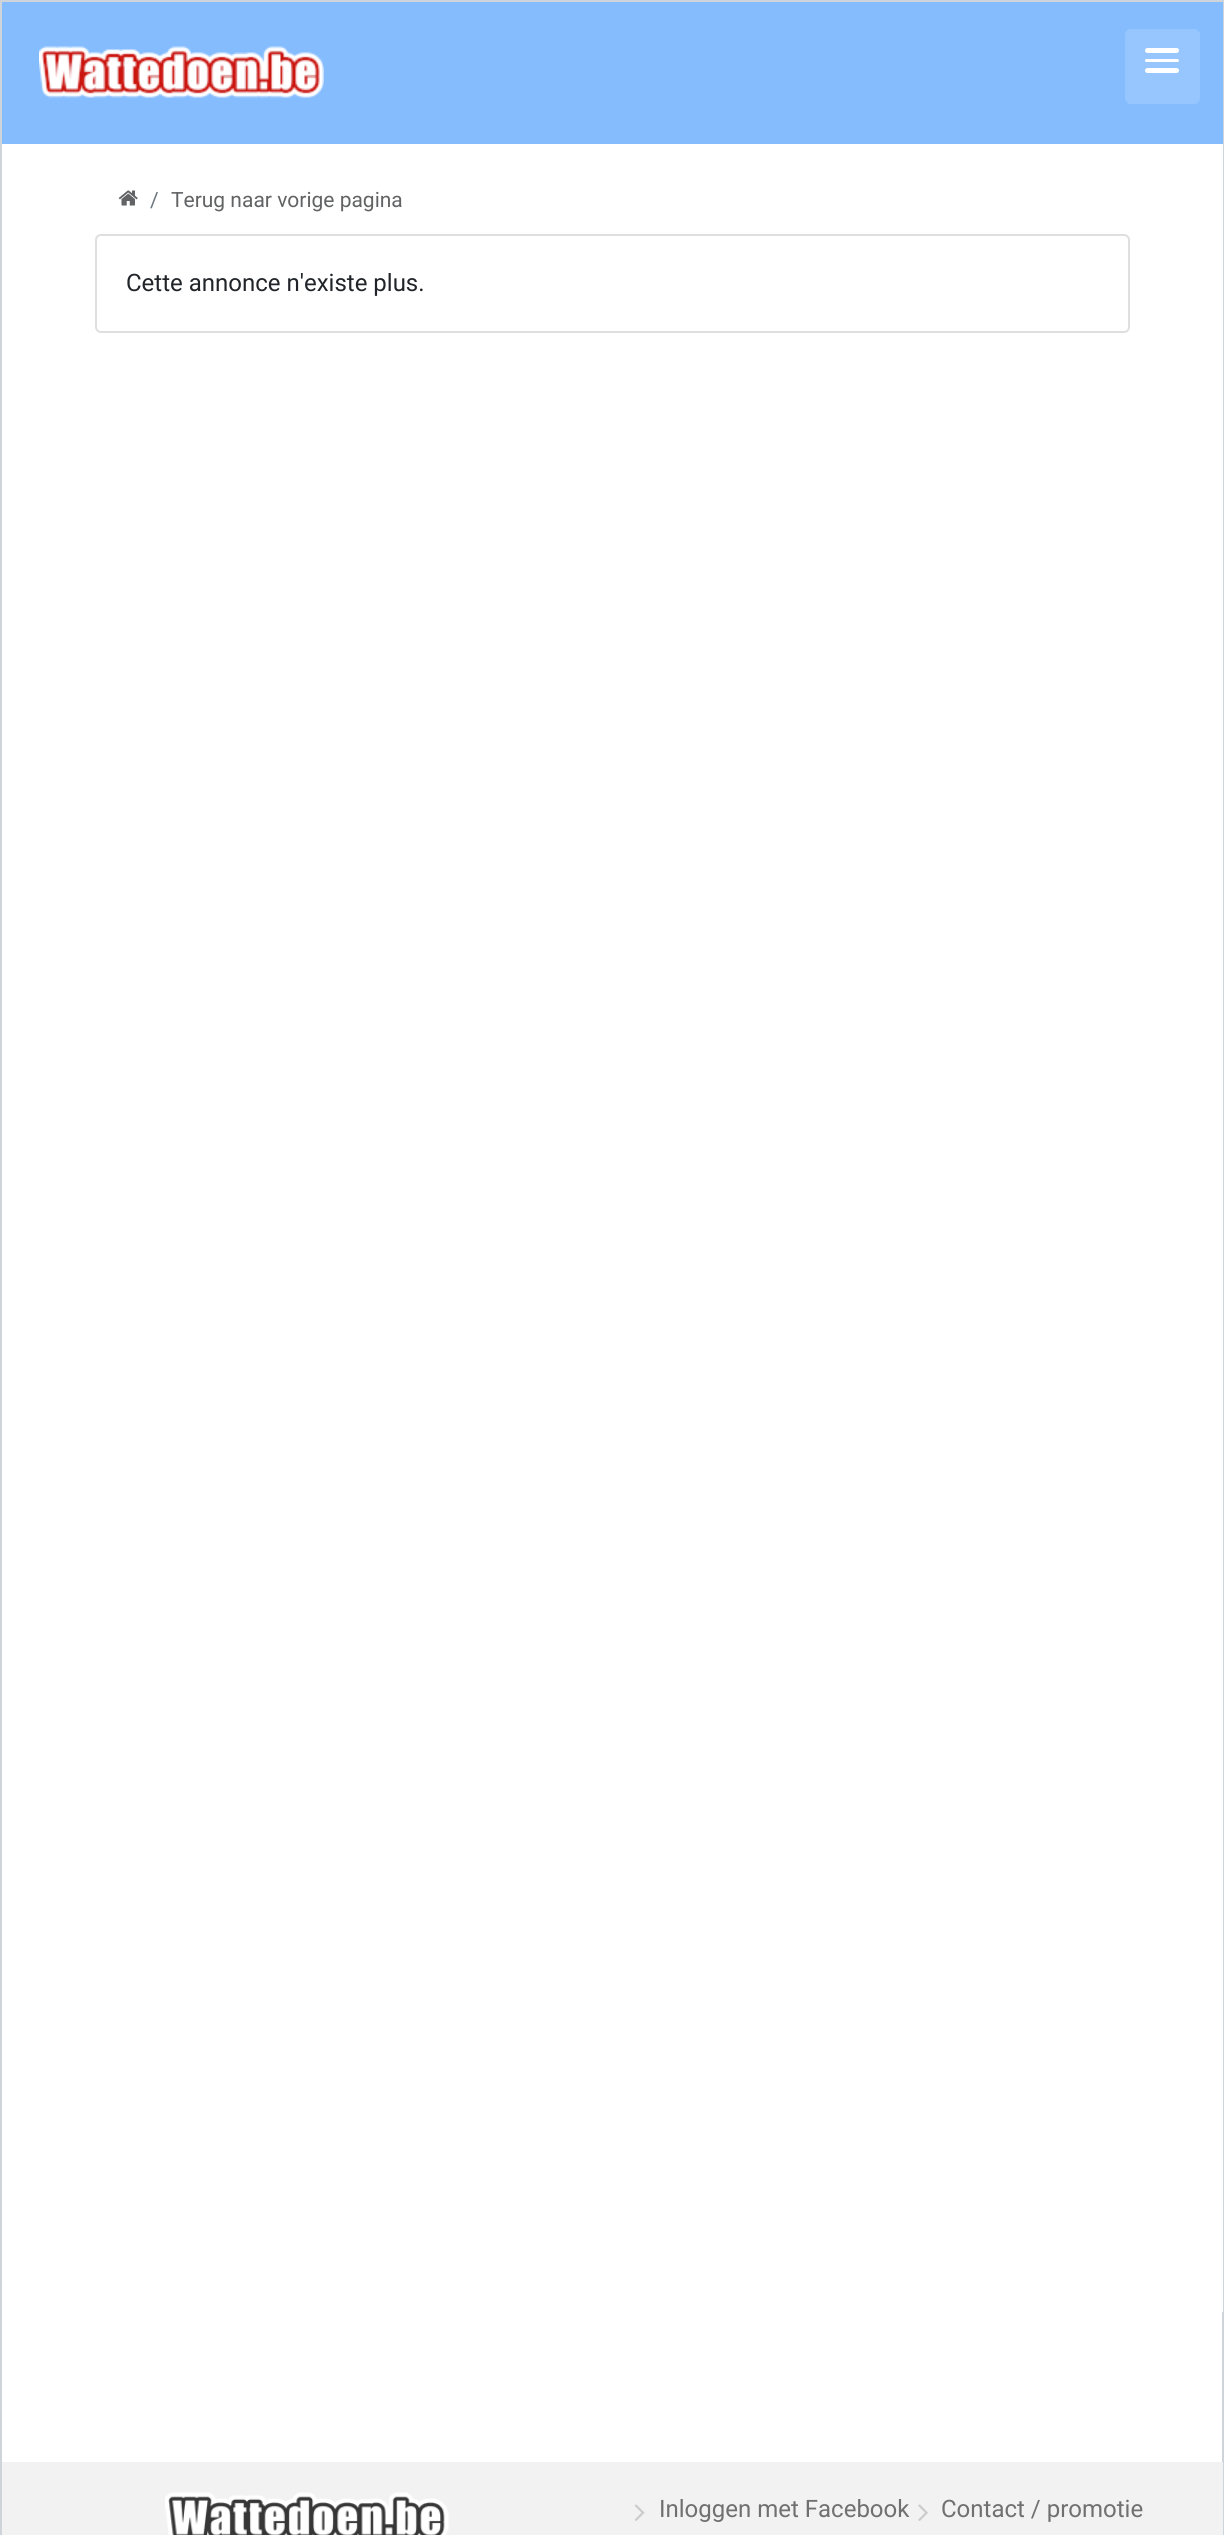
#include <cairo.h>
#include <math.h>
#include <stddef.h>

static cairo_t *ctx;

static void use_color(int r, int g, int b) {
    cairo_set_source_rgb(ctx, r / 255.0, g / 255.0, b / 255.0);
}

static void round_rect(double x, double y, double w, double h, double r) {
    cairo_new_sub_path(ctx);
    cairo_arc(ctx, x + w - r, y + h - r, r, 0, M_PI / 2);
    cairo_arc(ctx, x + r, y + h - r, r, M_PI / 2, M_PI);
    cairo_arc(ctx, x + r, y + r, r, M_PI, 1.5 * M_PI);
    cairo_arc(ctx, x + w - r, y + r, r, 1.5 * M_PI, 2 * M_PI);
    cairo_close_path(ctx);
}

static void picture(const char *path, double x, double y, double w, double h) {
    cairo_surface_t *image = cairo_image_surface_create_from_png(path);
    cairo_save(ctx);
    cairo_set_source_surface(ctx, image, x, y);
    cairo_rectangle(ctx, x, y, w, h);
    cairo_fill(ctx);
    cairo_restore(ctx);
    cairo_surface_destroy(image);
}

int main(void) {
    cairo_surface_t *surface = cairo_image_surface_create(CAIRO_FORMAT_RGB24, 1224, 2535);
    ctx = cairo_create(surface);
    cairo_font_options_t *options = cairo_font_options_create();
    cairo_font_options_set_hint_metrics(options, CAIRO_HINT_METRICS_OFF);
    cairo_font_options_set_hint_style(options, CAIRO_HINT_STYLE_NONE);
    cairo_set_font_options(ctx, options);
    cairo_set_miter_limit(ctx, 4);
    use_color(255, 255, 255);
    cairo_paint(ctx);
    cairo_rectangle(ctx, 1, 1, 1222, 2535);
    use_color(206, 212, 218);
    cairo_stroke(ctx);
    use_color(255, 255, 255);
    cairo_rectangle(ctx, 1222, 144, 1, 2168);
    cairo_fill(ctx);
    use_color(133, 188, 254);
    cairo_rectangle(ctx, 2, 2, 1221, 142);
    cairo_fill(ctx);
    picture("img1.png", 39, 46, 285, 52);
    use_color(151, 198, 254);
    round_rect(1125, 29, 75, 75, 6);
    cairo_fill(ctx);
    use_color(255, 255, 255);
    round_rect(1145, 68, 34, 5, 2.5);
    cairo_fill(ctx);
    round_rect(1145, 48, 34, 5, 2.5);
    cairo_fill(ctx);
    round_rect(1145, 59, 34, 3, 1.5);
    cairo_fill(ctx);
    picture("img2.png", 118, 190, 20, 16);
    cairo_select_font_face(ctx, "Roboto", CAIRO_FONT_SLANT_NORMAL, CAIRO_FONT_WEIGHT_NORMAL);
    cairo_set_font_size(ctx, 21);
    use_color(108, 117, 125);
    cairo_move_to(ctx, 150, 207);
    cairo_show_text(ctx, "/");
    use_color(98, 99, 100);
    cairo_move_to(ctx, 171, 207);
    cairo_show_text(ctx, "Terug naar vorige pagina");
    round_rect(96, 235, 1033, 97, 5);
    use_color(223, 223, 223);
    cairo_stroke(ctx);
    cairo_set_font_size(ctx, 24);
    use_color(33, 37, 41);
    cairo_move_to(ctx, 126, 291);
    cairo_show_text(ctx, "Cette annonce n'existe plus.");
    use_color(242, 242, 242);
    cairo_rectangle(ctx, 2, 2462, 1221, 73);
    cairo_fill(ctx);
    picture("img3.png", 165, 2492, 284, 43);
    picture("img4.png", 634, 2504, 11, 17);
    use_color(112, 112, 112);
    cairo_move_to(ctx, 659, 2517);
    cairo_show_text(ctx, "Inloggen met Facebook");
    picture("img5.png", 918, 2504, 10, 17);
    cairo_move_to(ctx, 941, 2517);
    cairo_show_text(ctx, "Contact / promotie");
    cairo_surface_write_to_png(surface, "result.png");
    cairo_font_options_destroy(options);
    cairo_destroy(ctx);
    cairo_surface_destroy(surface);
    return 0;
}
